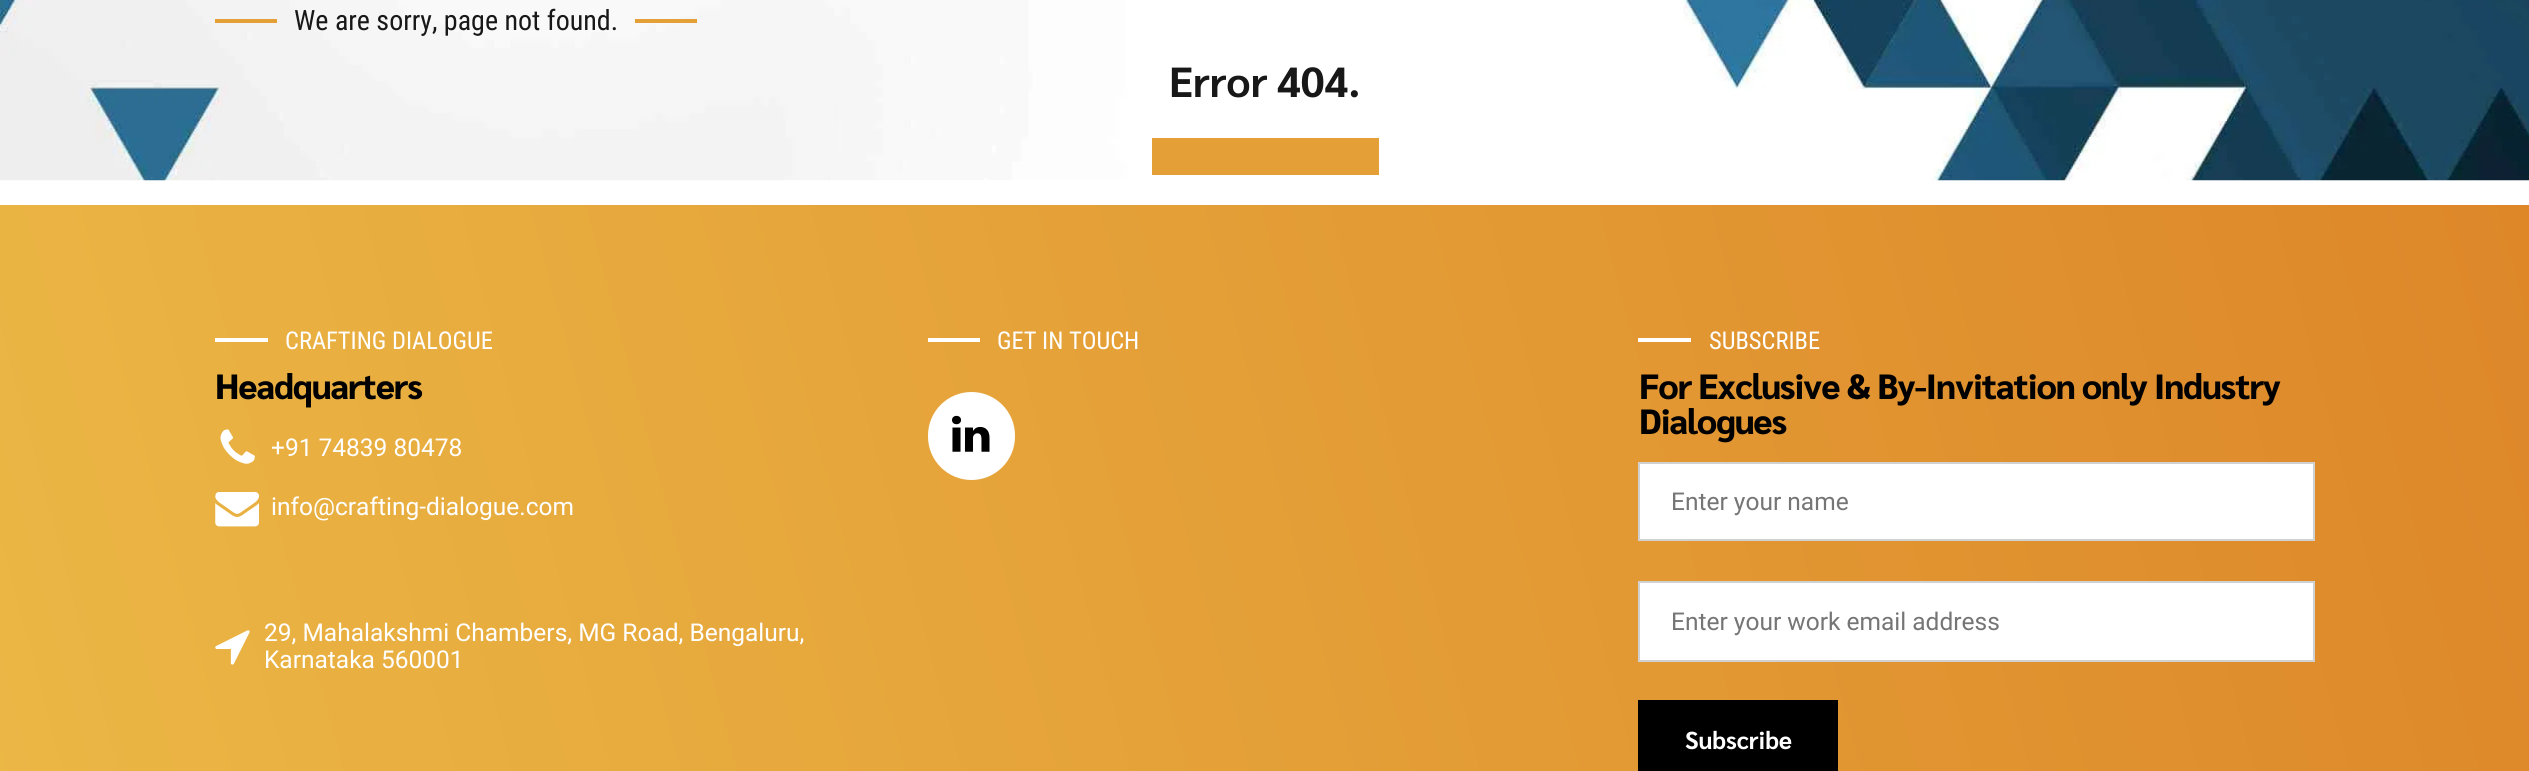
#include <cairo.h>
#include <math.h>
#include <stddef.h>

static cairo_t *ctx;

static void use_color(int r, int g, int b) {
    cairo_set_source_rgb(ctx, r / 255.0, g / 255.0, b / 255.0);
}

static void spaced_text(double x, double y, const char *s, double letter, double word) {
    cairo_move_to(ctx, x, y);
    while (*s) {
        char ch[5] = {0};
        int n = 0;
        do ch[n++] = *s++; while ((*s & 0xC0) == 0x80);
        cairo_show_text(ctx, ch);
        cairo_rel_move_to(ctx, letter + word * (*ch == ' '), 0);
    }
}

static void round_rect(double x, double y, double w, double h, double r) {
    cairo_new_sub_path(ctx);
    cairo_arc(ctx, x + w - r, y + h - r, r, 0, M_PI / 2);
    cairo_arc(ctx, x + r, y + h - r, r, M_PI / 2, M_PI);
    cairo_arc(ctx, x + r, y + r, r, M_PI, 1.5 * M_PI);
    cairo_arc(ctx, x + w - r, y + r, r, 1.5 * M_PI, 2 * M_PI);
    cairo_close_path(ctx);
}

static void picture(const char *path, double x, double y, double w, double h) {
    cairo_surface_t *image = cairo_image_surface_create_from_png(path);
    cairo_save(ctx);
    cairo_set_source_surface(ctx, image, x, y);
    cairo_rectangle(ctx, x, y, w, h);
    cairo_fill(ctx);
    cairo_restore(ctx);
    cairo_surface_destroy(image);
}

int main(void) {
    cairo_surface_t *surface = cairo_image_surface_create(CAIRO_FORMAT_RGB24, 2529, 771);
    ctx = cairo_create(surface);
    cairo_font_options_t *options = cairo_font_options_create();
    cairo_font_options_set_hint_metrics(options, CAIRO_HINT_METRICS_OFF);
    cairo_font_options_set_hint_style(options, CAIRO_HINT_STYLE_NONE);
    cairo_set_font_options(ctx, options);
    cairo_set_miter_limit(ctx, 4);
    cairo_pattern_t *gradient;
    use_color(255, 255, 255);
    cairo_paint(ctx);
    picture("img1.png", 0, 0, 2529, 181);
    use_color(228, 159, 55);
    cairo_rectangle(ctx, 215, 19, 62, 4);
    cairo_fill(ctx);
    cairo_select_font_face(ctx, "Roboto Condensed", CAIRO_FONT_SLANT_NORMAL, CAIRO_FONT_WEIGHT_NORMAL);
    cairo_set_font_size(ctx, 28);
    use_color(24, 24, 24);
    cairo_move_to(ctx, 294, 30);
    cairo_show_text(ctx, "We are sorry, page not found.");
    use_color(228, 159, 55);
    cairo_rectangle(ctx, 635, 19, 62, 4);
    cairo_fill(ctx);
    cairo_select_font_face(ctx, "Sarabun", CAIRO_FONT_SLANT_NORMAL, CAIRO_FONT_WEIGHT_BOLD);
    cairo_set_font_size(ctx, 42);
    use_color(24, 24, 24);
    cairo_move_to(ctx, 1169, 97);
    cairo_show_text(ctx, "Error 404.");
    use_color(228, 159, 55);
    cairo_rectangle(ctx, 1152, 138, 227, 37);
    cairo_fill(ctx);
    gradient = cairo_pattern_create_linear(1.6, 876, 2529, 199);
    cairo_pattern_add_color_stop_rgba(gradient, 0, 0.922, 0.718, 0.271, 1);
    cairo_pattern_add_color_stop_rgba(gradient, 1, 0.867, 0.529, 0.161, 1);
    cairo_set_source(ctx, gradient);
    cairo_pattern_destroy(gradient);
    cairo_rectangle(ctx, 0, 205, 2529, 566);
    cairo_fill(ctx);
    use_color(255, 255, 255);
    cairo_rectangle(ctx, 215, 338, 53, 4);
    cairo_fill(ctx);
    cairo_select_font_face(ctx, "Roboto Condensed", CAIRO_FONT_SLANT_NORMAL, CAIRO_FONT_WEIGHT_NORMAL);
    cairo_set_font_size(ctx, 24.5);
    cairo_move_to(ctx, 285, 349);
    cairo_show_text(ctx, "CRAFTING DIALOGUE");
    cairo_select_font_face(ctx, "Sarabun ExtraBold", CAIRO_FONT_SLANT_NORMAL, CAIRO_FONT_WEIGHT_NORMAL);
    cairo_set_font_size(ctx, 35);
    use_color(0, 0, 0);
    spaced_text(215, 399, "Headquarters", -1.05, 0);
    picture("img2.png", 220, 429, 35, 35);
    cairo_select_font_face(ctx, "Roboto", CAIRO_FONT_SLANT_NORMAL, CAIRO_FONT_WEIGHT_NORMAL);
    cairo_set_font_size(ctx, 24.5);
    use_color(255, 255, 255);
    cairo_move_to(ctx, 271, 456);
    cairo_show_text(ctx, "+91 74839 80478");
    picture("img3.png", 215, 492, 44, 35);
    cairo_move_to(ctx, 271, 515);
    cairo_show_text(ctx, "info@crafting-dialogue.com");
    picture("img4.png", 215, 630, 35, 35);
    cairo_move_to(ctx, 264, 641);
    cairo_show_text(ctx, "29, Mahalakshmi Chambers, MG Road, Bengaluru,");
    cairo_move_to(ctx, 264, 668);
    cairo_show_text(ctx, "Karnataka 560001");
    cairo_rectangle(ctx, 928, 338, 52, 4);
    cairo_fill(ctx);
    cairo_select_font_face(ctx, "Roboto Condensed", CAIRO_FONT_SLANT_NORMAL, CAIRO_FONT_WEIGHT_NORMAL);
    cairo_move_to(ctx, 997, 349);
    cairo_show_text(ctx, "GET IN TOUCH");
    round_rect(928, 392, 87, 88, 43.5);
    cairo_fill(ctx);
    picture("img5.png", 952, 415, 38, 37);
    cairo_rectangle(ctx, 1638, 338, 53, 4);
    cairo_fill(ctx);
    cairo_move_to(ctx, 1709, 349);
    cairo_show_text(ctx, "SUBSCRIBE");
    cairo_select_font_face(ctx, "Sarabun ExtraBold", CAIRO_FONT_SLANT_NORMAL, CAIRO_FONT_WEIGHT_NORMAL);
    cairo_set_font_size(ctx, 35);
    use_color(0, 0, 0);
    spaced_text(1639, 399, "For Exclusive & By-Invitation only Industry", -1.05, 0);
    spaced_text(1639, 434, "Dialogues", -1.05, 0);
    use_color(255, 255, 255);
    cairo_rectangle(ctx, 1639, 463, 675, 77);
    cairo_fill_preserve(ctx);
    use_color(209, 209, 209);
    cairo_stroke(ctx);
    cairo_select_font_face(ctx, "Roboto", CAIRO_FONT_SLANT_NORMAL, CAIRO_FONT_WEIGHT_NORMAL);
    cairo_set_font_size(ctx, 24.5);
    use_color(117, 117, 117);
    cairo_move_to(ctx, 1671, 510);
    cairo_show_text(ctx, "Enter your name");
    use_color(255, 255, 255);
    cairo_rectangle(ctx, 1639, 582, 675, 79);
    cairo_fill_preserve(ctx);
    use_color(209, 209, 209);
    cairo_stroke(ctx);
    use_color(117, 117, 117);
    cairo_move_to(ctx, 1671, 630);
    cairo_show_text(ctx, "Enter your work email address");
    use_color(0, 0, 0);
    cairo_rectangle(ctx, 1638, 700, 200, 71);
    cairo_fill(ctx);
    cairo_select_font_face(ctx, "Sarabun", CAIRO_FONT_SLANT_NORMAL, CAIRO_FONT_WEIGHT_BOLD);
    use_color(255, 255, 255);
    cairo_move_to(ctx, 1685, 749);
    cairo_show_text(ctx, "Subscribe");
    cairo_surface_write_to_png(surface, "result.png");
    cairo_font_options_destroy(options);
    cairo_destroy(ctx);
    cairo_surface_destroy(surface);
    return 0;
}
